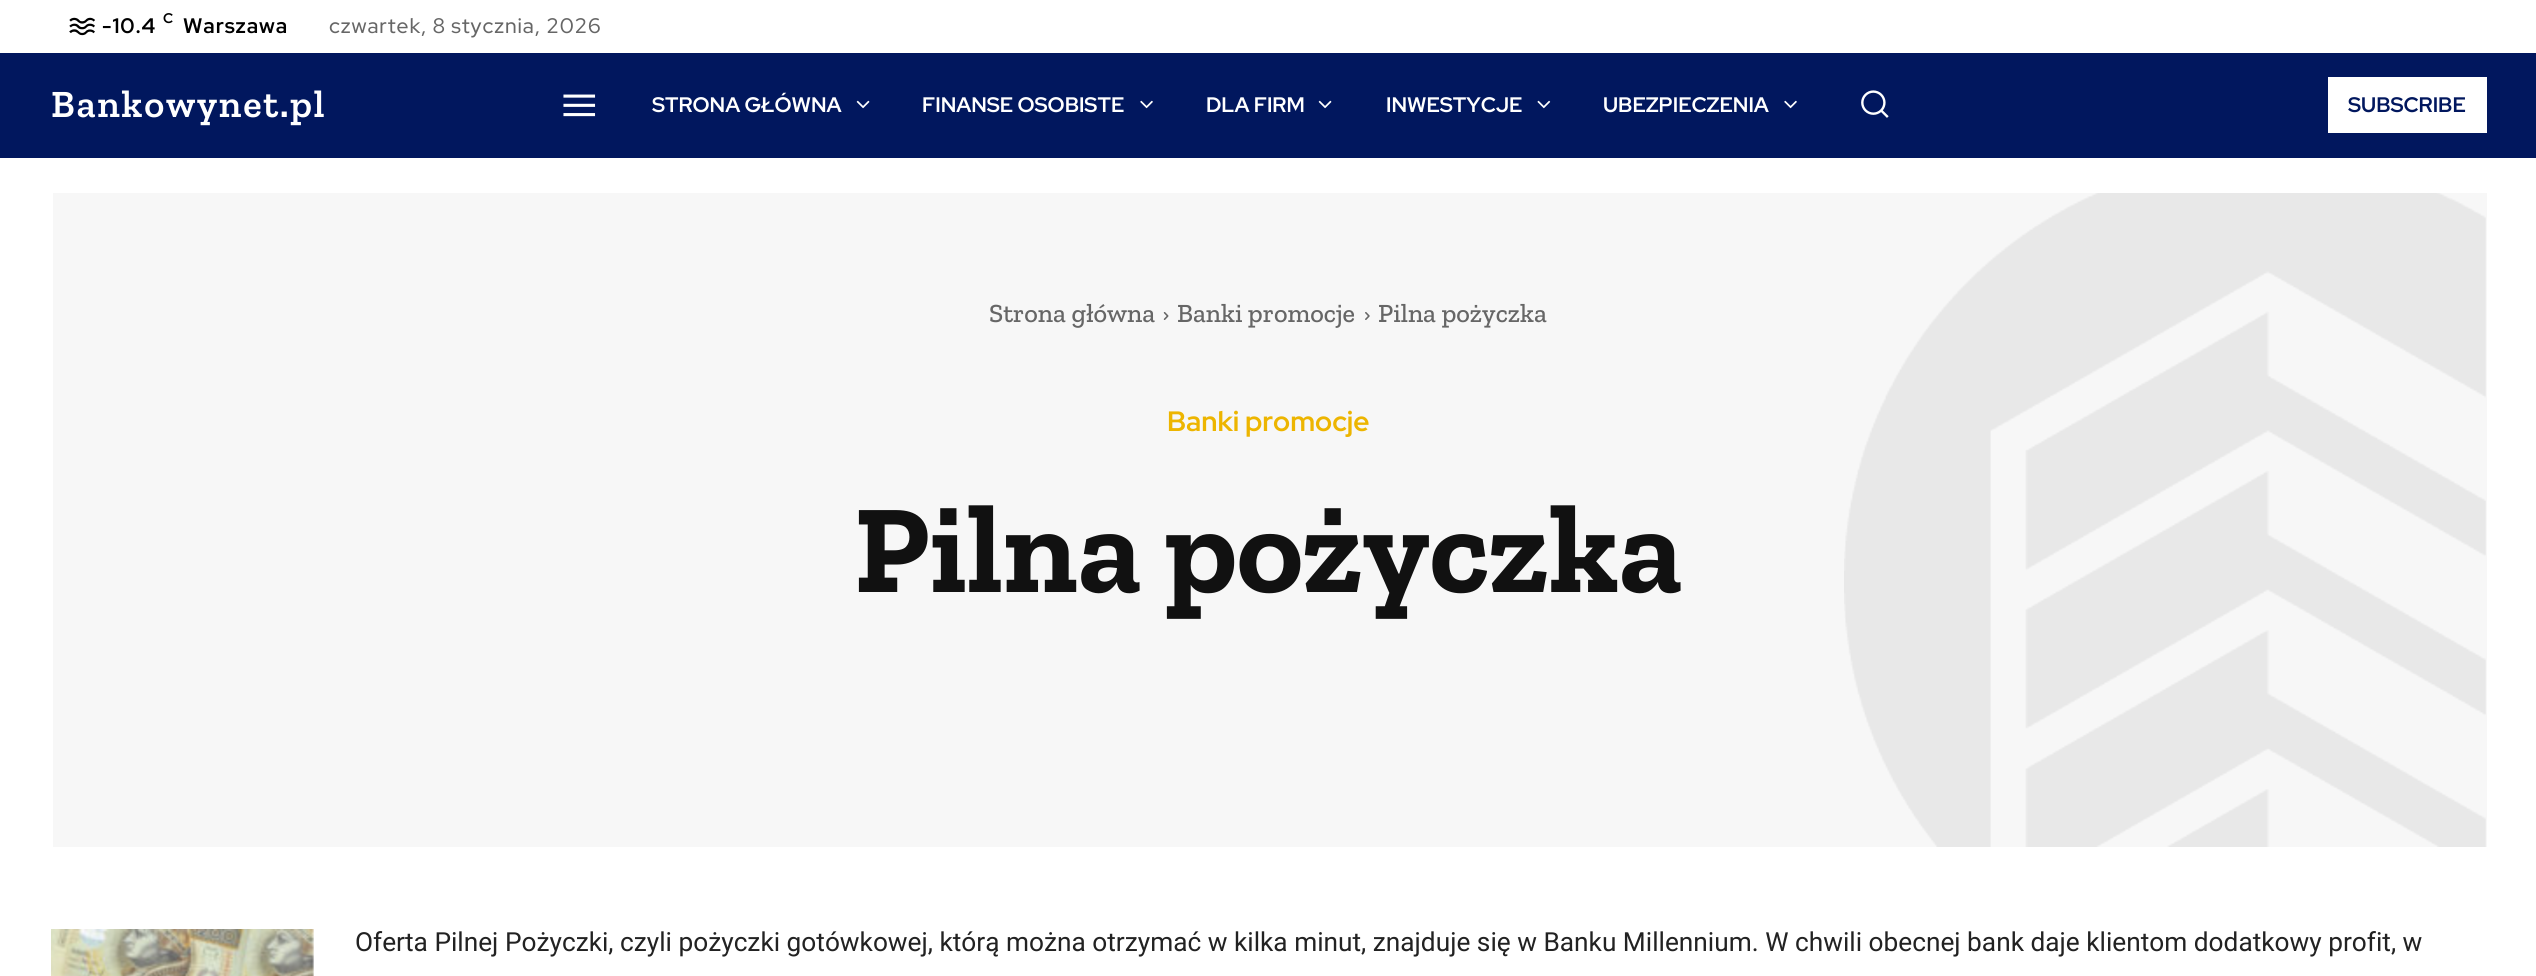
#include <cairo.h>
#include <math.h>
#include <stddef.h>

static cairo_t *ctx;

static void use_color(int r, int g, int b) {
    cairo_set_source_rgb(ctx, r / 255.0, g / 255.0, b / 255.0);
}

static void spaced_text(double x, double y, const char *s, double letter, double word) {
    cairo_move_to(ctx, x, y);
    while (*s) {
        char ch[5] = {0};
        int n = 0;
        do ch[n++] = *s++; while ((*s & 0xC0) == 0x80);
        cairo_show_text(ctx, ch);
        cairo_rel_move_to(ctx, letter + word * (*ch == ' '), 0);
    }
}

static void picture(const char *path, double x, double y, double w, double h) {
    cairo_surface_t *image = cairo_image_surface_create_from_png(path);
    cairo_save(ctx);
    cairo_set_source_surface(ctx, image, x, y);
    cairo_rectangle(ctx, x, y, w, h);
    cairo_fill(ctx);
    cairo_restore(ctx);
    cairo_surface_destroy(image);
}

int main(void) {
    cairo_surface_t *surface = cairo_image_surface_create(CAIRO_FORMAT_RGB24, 2536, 976);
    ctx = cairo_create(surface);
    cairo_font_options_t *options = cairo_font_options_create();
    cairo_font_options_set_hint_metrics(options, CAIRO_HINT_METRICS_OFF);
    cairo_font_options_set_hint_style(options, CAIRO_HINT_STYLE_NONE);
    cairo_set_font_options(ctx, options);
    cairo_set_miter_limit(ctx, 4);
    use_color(255, 255, 255);
    cairo_paint(ctx);
    picture("img1.png", 69, 17, 26, 19);
    cairo_select_font_face(ctx, "Red Hat Display", CAIRO_FONT_SLANT_NORMAL, CAIRO_FONT_WEIGHT_BOLD);
    cairo_set_font_size(ctx, 21);
    use_color(0, 0, 0);
    spaced_text(102, 33, "-10.4", 0.9, 0);
    cairo_set_font_size(ctx, 14);
    spaced_text(163, 23, "C", 0.9, 0);
    cairo_set_font_size(ctx, 21);
    spaced_text(183, 33, "Warszawa", 0.9, 0);
    cairo_select_font_face(ctx, "Red Hat Display Medium", CAIRO_FONT_SLANT_NORMAL, CAIRO_FONT_WEIGHT_NORMAL);
    use_color(102, 102, 102);
    spaced_text(329, 33, "czwartek, 8 stycznia, 2026", 0.9, 0);
    use_color(1, 23, 94);
    cairo_rectangle(ctx, 0, 53, 2536, 105);
    cairo_fill(ctx);
    cairo_select_font_face(ctx, "Zilla Slab SemiBold", CAIRO_FONT_SLANT_NORMAL, CAIRO_FONT_WEIGHT_NORMAL);
    cairo_set_font_size(ctx, 38.5);
    use_color(255, 255, 255);
    spaced_text(51, 117, "Bankowynet.pl", 1.75, 0);
    picture("img2.png", 563, 94, 33, 23);
    cairo_select_font_face(ctx, "Red Hat Display", CAIRO_FONT_SLANT_NORMAL, CAIRO_FONT_WEIGHT_BOLD);
    cairo_set_font_size(ctx, 21);
    cairo_move_to(ctx, 652, 112);
    cairo_show_text(ctx, "STRONA GŁÓWNA");
    picture("img3.png", 856, 100, 14, 9);
    cairo_move_to(ctx, 922, 112);
    cairo_show_text(ctx, "FINANSE OSOBISTE");
    picture("img4.png", 1140, 100, 13, 9);
    cairo_move_to(ctx, 1206, 112);
    cairo_show_text(ctx, "DLA FIRM");
    picture("img3.png", 1318, 100, 14, 9);
    cairo_move_to(ctx, 1386, 112);
    cairo_show_text(ctx, "INWESTYCJE");
    picture("img5.png", 1537, 100, 14, 9);
    cairo_move_to(ctx, 1603, 112);
    cairo_show_text(ctx, "UBEZPIECZENIA");
    picture("img4.png", 1784, 100, 13, 9);
    picture("img6.png", 1861, 90, 28, 28);
    cairo_rectangle(ctx, 2328, 77, 159, 56);
    cairo_fill(ctx);
    use_color(1, 23, 94);
    cairo_move_to(ctx, 2348, 112);
    cairo_show_text(ctx, "SUBSCRIBE");
    use_color(247, 247, 247);
    cairo_rectangle(ctx, 53, 193, 2434, 654);
    cairo_fill(ctx);
    picture("img7.png", 1844, 193, 642, 654);
    cairo_select_font_face(ctx, "Zilla Slab Medium", CAIRO_FONT_SLANT_NORMAL, CAIRO_FONT_WEIGHT_NORMAL);
    cairo_set_font_size(ctx, 26.25);
    use_color(102, 102, 102);
    cairo_move_to(ctx, 989, 322);
    cairo_show_text(ctx, "Strona główna");
    picture("img8.png", 1163, 312, 6, 8);
    cairo_move_to(ctx, 1177, 322);
    cairo_show_text(ctx, "Banki promocje");
    picture("img9.png", 1365, 312, 5, 8);
    cairo_move_to(ctx, 1378, 322);
    cairo_show_text(ctx, "Pilna pożyczka");
    cairo_select_font_face(ctx, "Red Hat Display", CAIRO_FONT_SLANT_NORMAL, CAIRO_FONT_WEIGHT_BOLD);
    cairo_set_font_size(ctx, 28);
    use_color(237, 181, 0);
    cairo_move_to(ctx, 1167, 431);
    cairo_show_text(ctx, "Banki promocje");
    cairo_select_font_face(ctx, "Zilla Slab", CAIRO_FONT_SLANT_NORMAL, CAIRO_FONT_WEIGHT_BOLD);
    cairo_set_font_size(ctx, 126);
    use_color(17, 17, 17);
    cairo_move_to(ctx, 854, 592);
    cairo_show_text(ctx, "Pilna pożyczka");
    picture("img10.png", 51, 929, 263, 47);
    cairo_select_font_face(ctx, "Roboto", CAIRO_FONT_SLANT_NORMAL, CAIRO_FONT_WEIGHT_NORMAL);
    cairo_set_font_size(ctx, 26.25);
    use_color(34, 34, 34);
    cairo_move_to(ctx, 355, 951);
    cairo_show_text(ctx, "Oferta Pilnej Pożyczki, czyli pożyczki gotówkowej, którą można otrzymać w kilka minut, znajduje się w Banku Millennium. W chwili obecnej bank daje klientom dodatkowy profit, w");
    cairo_surface_write_to_png(surface, "result.png");
    cairo_font_options_destroy(options);
    cairo_destroy(ctx);
    cairo_surface_destroy(surface);
    return 0;
}
